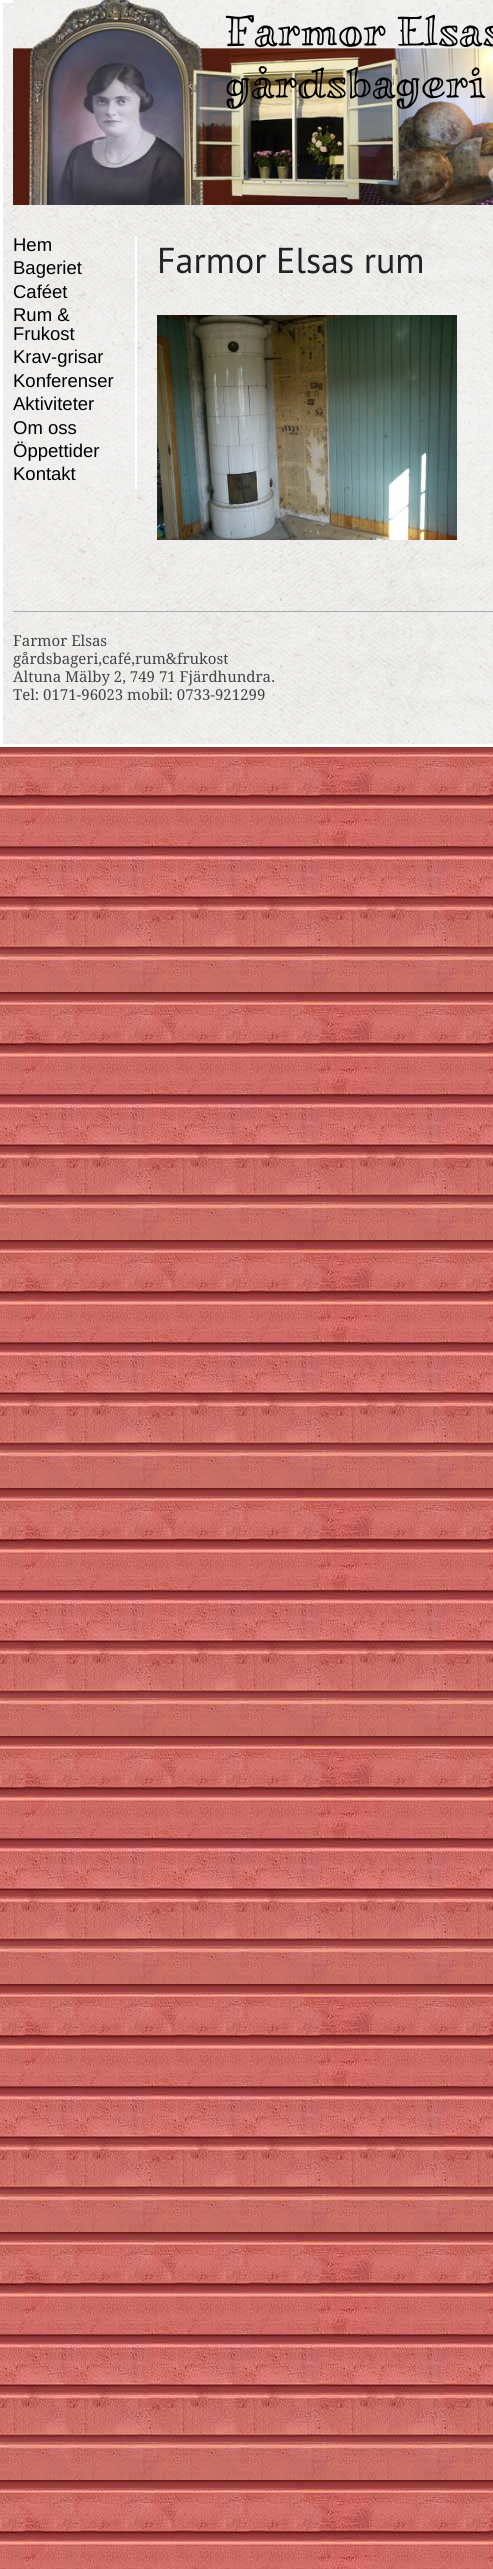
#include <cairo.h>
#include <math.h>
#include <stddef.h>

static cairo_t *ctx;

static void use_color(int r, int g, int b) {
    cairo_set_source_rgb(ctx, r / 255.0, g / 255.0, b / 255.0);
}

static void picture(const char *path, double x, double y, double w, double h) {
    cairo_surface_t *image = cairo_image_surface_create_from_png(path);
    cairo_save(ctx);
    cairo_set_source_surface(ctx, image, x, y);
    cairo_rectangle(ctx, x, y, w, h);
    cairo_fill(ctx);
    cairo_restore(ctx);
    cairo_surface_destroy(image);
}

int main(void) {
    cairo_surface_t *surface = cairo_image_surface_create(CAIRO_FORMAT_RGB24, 493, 2569);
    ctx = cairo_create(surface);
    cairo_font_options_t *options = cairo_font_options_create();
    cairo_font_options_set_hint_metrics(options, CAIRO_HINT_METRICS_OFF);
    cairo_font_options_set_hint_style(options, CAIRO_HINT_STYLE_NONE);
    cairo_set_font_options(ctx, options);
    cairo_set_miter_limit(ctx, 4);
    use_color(255, 255, 255);
    cairo_paint(ctx);
    picture("img1.png", 0, 747, 493, 1822);
    picture("img2.png", 3, 3, 490, 741);
    picture("img3.png", 13, 0, 480, 205);
    cairo_select_font_face(ctx, "Miltonian", CAIRO_FONT_SLANT_NORMAL, CAIRO_FONT_WEIGHT_NORMAL);
    cairo_set_font_size(ctx, 43.25);
    use_color(0, 0, 0);
    cairo_move_to(ctx, 225, 45);
    cairo_show_text(ctx, "Farmor Elsas");
    cairo_move_to(ctx, 225, 97);
    cairo_show_text(ctx, "gårdsbageri");
    use_color(255, 255, 255);
    cairo_rectangle(ctx, 135, 236, 2, 253);
    cairo_fill(ctx);
    cairo_select_font_face(ctx, "Liberation Sans", CAIRO_FONT_SLANT_NORMAL, CAIRO_FONT_WEIGHT_NORMAL);
    cairo_set_font_size(ctx, 18.5);
    use_color(0, 0, 0);
    cairo_move_to(ctx, 13, 251);
    cairo_show_text(ctx, "Hem");
    cairo_move_to(ctx, 13, 274);
    cairo_show_text(ctx, "Bageriet");
    cairo_move_to(ctx, 13, 298);
    cairo_show_text(ctx, "Caféet");
    cairo_move_to(ctx, 13, 321);
    cairo_show_text(ctx, "Rum &");
    cairo_move_to(ctx, 13, 340);
    cairo_show_text(ctx, "Frukost");
    cairo_move_to(ctx, 13, 363);
    cairo_show_text(ctx, "Krav-grisar");
    cairo_move_to(ctx, 13, 387);
    cairo_show_text(ctx, "Konferenser");
    cairo_move_to(ctx, 13, 410);
    cairo_show_text(ctx, "Aktiviteter");
    cairo_move_to(ctx, 13, 434);
    cairo_show_text(ctx, "Om oss");
    cairo_move_to(ctx, 13, 457);
    cairo_show_text(ctx, "Öppettider");
    cairo_move_to(ctx, 13, 480);
    cairo_show_text(ctx, "Kontakt");
    cairo_select_font_face(ctx, "PT Sans", CAIRO_FONT_SLANT_NORMAL, CAIRO_FONT_WEIGHT_NORMAL);
    cairo_set_font_size(ctx, 36);
    use_color(34, 34, 34);
    cairo_move_to(ctx, 157, 273);
    cairo_show_text(ctx, "Farmor Elsas rum");
    picture("img4.png", 157, 315, 300, 225);
    use_color(170, 170, 170);
    cairo_rectangle(ctx, 13, 611, 480, 1);
    cairo_fill(ctx);
    cairo_select_font_face(ctx, "Droid Serif", CAIRO_FONT_SLANT_NORMAL, CAIRO_FONT_WEIGHT_NORMAL);
    cairo_set_font_size(ctx, 15);
    use_color(68, 68, 68);
    cairo_move_to(ctx, 13, 646);
    cairo_show_text(ctx, "Farmor Elsas");
    cairo_move_to(ctx, 13, 664);
    cairo_show_text(ctx, "gårdsbageri,café,rum&frukost");
    cairo_move_to(ctx, 13, 682);
    cairo_show_text(ctx, "Altuna Mälby 2, 749 71 Fjärdhundra.");
    cairo_move_to(ctx, 13, 700);
    cairo_show_text(ctx, "Tel: 0171-96023 mobil: 0733-921299");
    cairo_surface_write_to_png(surface, "result.png");
    cairo_font_options_destroy(options);
    cairo_destroy(ctx);
    cairo_surface_destroy(surface);
    return 0;
}
